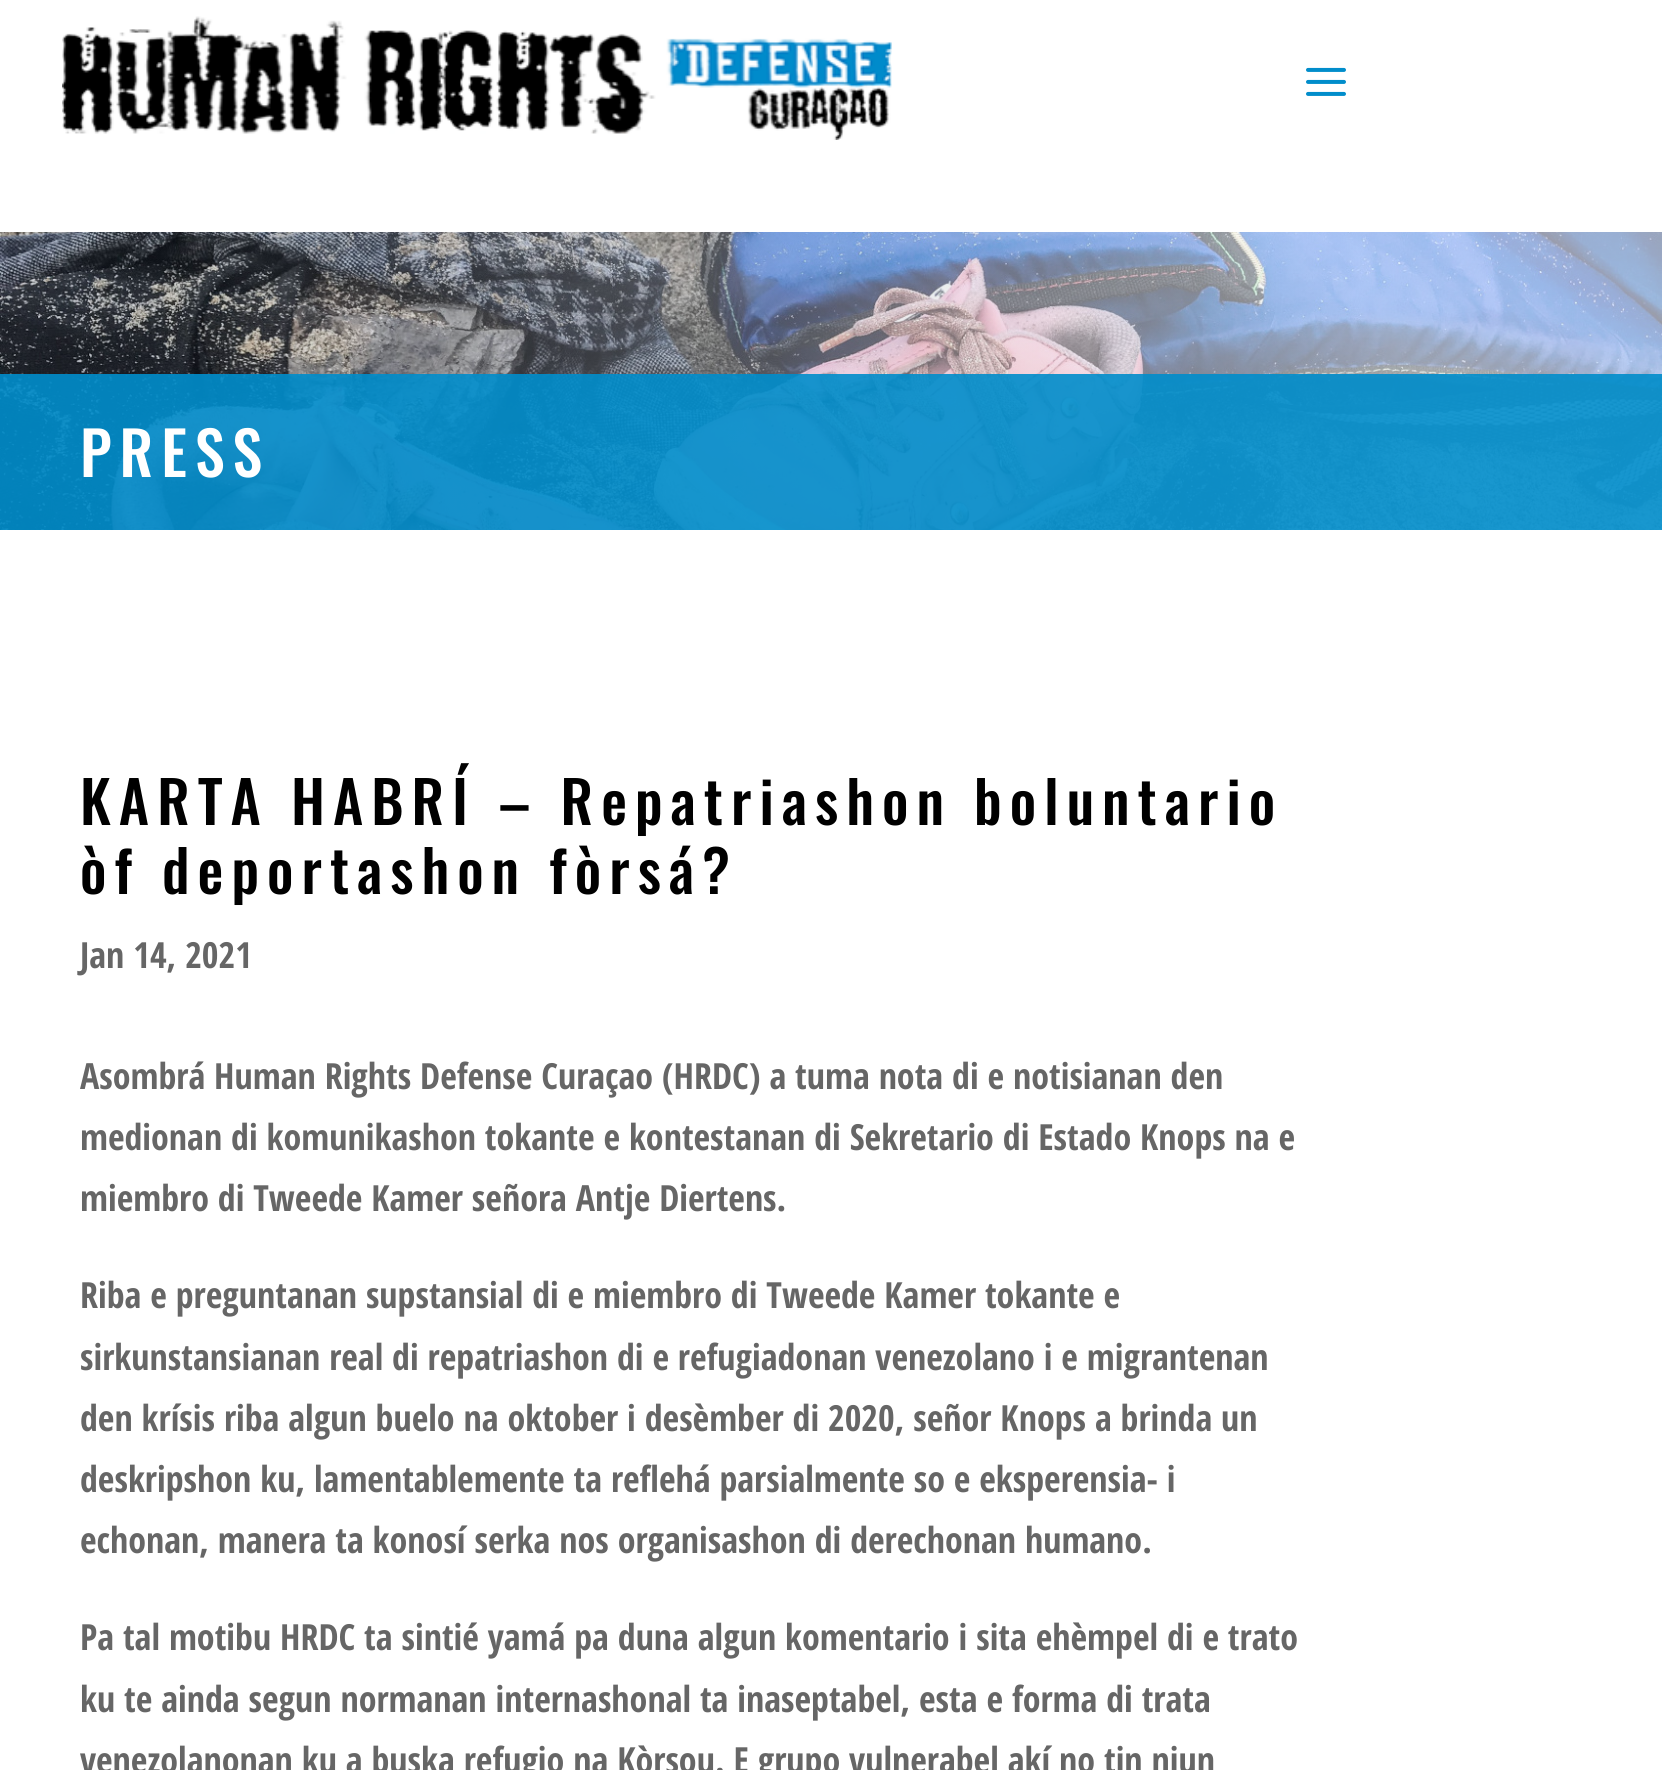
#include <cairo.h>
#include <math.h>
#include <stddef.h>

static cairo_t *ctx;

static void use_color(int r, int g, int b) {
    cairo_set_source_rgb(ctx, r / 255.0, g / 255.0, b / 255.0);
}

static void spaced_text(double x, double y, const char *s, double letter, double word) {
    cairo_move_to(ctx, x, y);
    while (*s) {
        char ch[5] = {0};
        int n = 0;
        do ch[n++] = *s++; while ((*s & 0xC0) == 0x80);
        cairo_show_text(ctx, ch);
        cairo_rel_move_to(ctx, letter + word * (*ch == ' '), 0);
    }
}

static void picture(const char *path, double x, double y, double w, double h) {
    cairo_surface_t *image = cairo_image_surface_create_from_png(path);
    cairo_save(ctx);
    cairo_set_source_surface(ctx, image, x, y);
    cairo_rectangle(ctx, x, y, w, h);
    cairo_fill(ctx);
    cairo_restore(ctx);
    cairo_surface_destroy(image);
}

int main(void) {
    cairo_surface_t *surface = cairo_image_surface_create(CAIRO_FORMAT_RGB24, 1662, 1770);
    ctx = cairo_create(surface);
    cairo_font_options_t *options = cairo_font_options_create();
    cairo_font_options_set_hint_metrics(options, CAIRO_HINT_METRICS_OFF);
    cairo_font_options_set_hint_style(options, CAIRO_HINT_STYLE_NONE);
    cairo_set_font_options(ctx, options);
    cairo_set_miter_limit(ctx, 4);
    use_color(255, 255, 255);
    cairo_paint(ctx);
    picture("img1.png", 62, 16, 830, 124);
    picture("img2.png", 1306, 67, 40, 29);
    picture("img3.png", 0, 232, 1662, 298);
    cairo_set_source_rgba(ctx, 0.004, 0.553, 0.796, 0.9);
    cairo_rectangle(ctx, 0, 374, 1662, 156);
    cairo_fill(ctx);
    cairo_select_font_face(ctx, "Oswald Medium", CAIRO_FONT_SLANT_NORMAL, CAIRO_FONT_WEIGHT_NORMAL);
    cairo_set_font_size(ctx, 60);
    use_color(255, 255, 255);
    spaced_text(80, 477, "PRESS", 8, 0);
    cairo_set_font_size(ctx, 58);
    use_color(0, 0, 0);
    spaced_text(80, 825, "KARTA HABRÍ – Repatriashon boluntario", 8, 0);
    spaced_text(80, 894, "òf deportashon fòrsá?", 8, 0);
    cairo_select_font_face(ctx, "Open Sans Condensed", CAIRO_FONT_SLANT_NORMAL, CAIRO_FONT_WEIGHT_BOLD);
    cairo_set_font_size(ctx, 36);
    use_color(102, 102, 102);
    cairo_move_to(ctx, 80, 968);
    cairo_show_text(ctx, "Jan 14, 2021");
    cairo_move_to(ctx, 80, 1089);
    cairo_show_text(ctx, "Asombrá Human Rights Defense Curaçao (HRDC) a tuma nota di e notisianan den");
    cairo_move_to(ctx, 80, 1150);
    cairo_show_text(ctx, "medionan di komunikashon tokante e kontestanan di Sekretario di Estado Knops na e");
    cairo_move_to(ctx, 80, 1211);
    cairo_show_text(ctx, "miembro di Tweede Kamer señora Antje Diertens.");
    cairo_move_to(ctx, 80, 1308);
    cairo_show_text(ctx, "Riba e preguntanan supstansial di e miembro di Tweede Kamer tokante e");
    cairo_move_to(ctx, 80, 1370);
    cairo_show_text(ctx, "sirkunstansianan real di repatriashon di e refugiadonan venezolano i e migrantenan");
    cairo_move_to(ctx, 80, 1431);
    cairo_show_text(ctx, "den krísis riba algun buelo na oktober i desèmber di 2020, señor Knops a brinda un");
    cairo_move_to(ctx, 80, 1492);
    cairo_show_text(ctx, "deskripshon ku, lamentablemente ta reflehá parsialmente so e eksperensia- i");
    cairo_move_to(ctx, 80, 1553);
    cairo_show_text(ctx, "echonan, manera ta konosí serka nos organisashon di derechonan humano.");
    cairo_move_to(ctx, 80, 1650);
    cairo_show_text(ctx, "Pa tal motibu HRDC ta sintié yamá pa duna algun komentario i sita ehèmpel di e trato");
    cairo_move_to(ctx, 80, 1712);
    cairo_show_text(ctx, "ku te ainda segun normanan internashonal ta inaseptabel, esta e forma di trata");
    cairo_move_to(ctx, 80, 1773);
    cairo_show_text(ctx, "venezolanonan ku a buska refugio na Kòrsou. E grupo vulnerabel akí no tin niun");
    cairo_surface_write_to_png(surface, "result.png");
    cairo_font_options_destroy(options);
    cairo_destroy(ctx);
    cairo_surface_destroy(surface);
    return 0;
}
